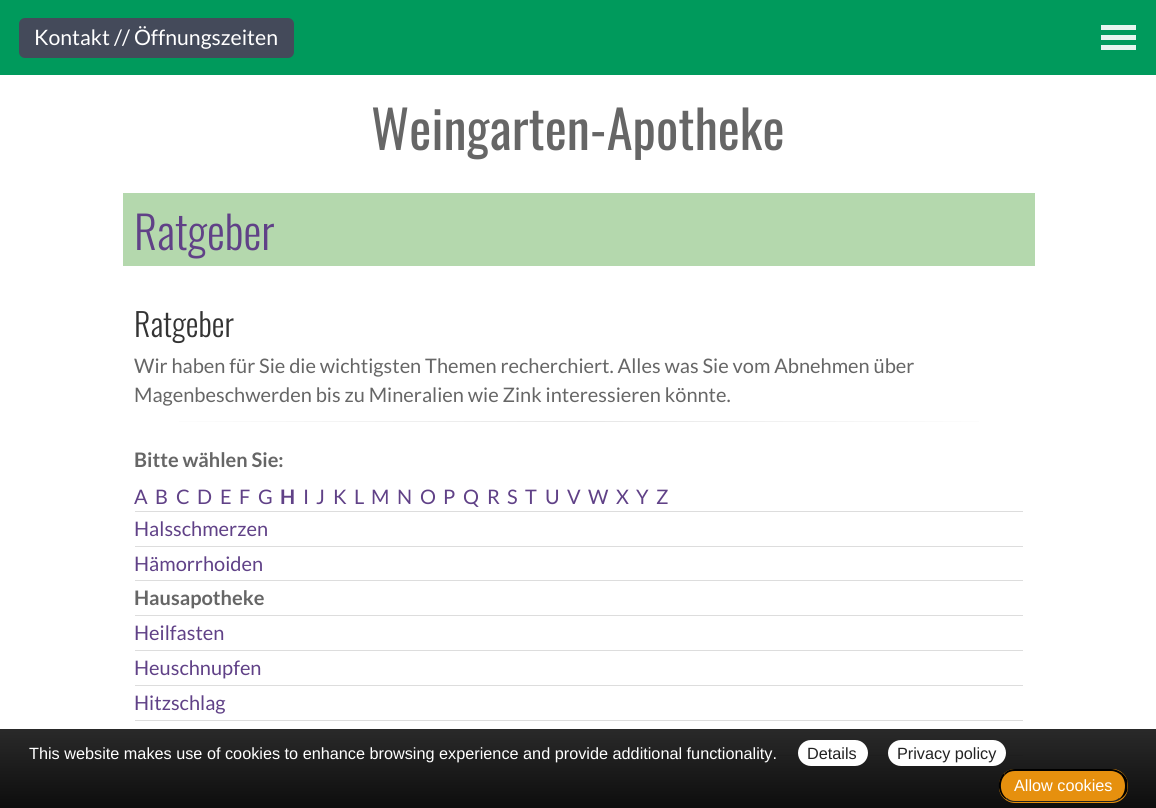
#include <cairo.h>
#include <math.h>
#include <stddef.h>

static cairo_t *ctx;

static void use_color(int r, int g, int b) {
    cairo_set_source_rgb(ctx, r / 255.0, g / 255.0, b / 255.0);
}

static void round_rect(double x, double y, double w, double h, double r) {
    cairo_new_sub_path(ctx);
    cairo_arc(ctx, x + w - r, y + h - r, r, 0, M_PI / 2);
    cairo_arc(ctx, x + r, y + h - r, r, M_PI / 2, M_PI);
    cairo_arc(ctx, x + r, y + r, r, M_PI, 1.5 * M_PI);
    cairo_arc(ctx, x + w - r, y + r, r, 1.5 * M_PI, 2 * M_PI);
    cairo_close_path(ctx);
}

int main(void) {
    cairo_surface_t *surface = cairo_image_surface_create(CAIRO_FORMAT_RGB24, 1156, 808);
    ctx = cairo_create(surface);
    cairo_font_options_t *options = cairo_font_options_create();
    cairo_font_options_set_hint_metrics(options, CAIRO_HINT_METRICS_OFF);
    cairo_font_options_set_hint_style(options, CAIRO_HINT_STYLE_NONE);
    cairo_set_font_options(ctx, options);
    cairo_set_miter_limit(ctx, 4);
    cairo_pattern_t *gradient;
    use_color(255, 255, 255);
    cairo_paint(ctx);
    use_color(0, 154, 92);
    cairo_rectangle(ctx, 0, 0, 1156, 75);
    cairo_fill(ctx);
    use_color(68, 74, 90);
    round_rect(19, 18, 275, 40, 6);
    cairo_fill(ctx);
    cairo_select_font_face(ctx, "Lato", CAIRO_FONT_SLANT_NORMAL, CAIRO_FONT_WEIGHT_NORMAL);
    cairo_set_font_size(ctx, 21.25);
    use_color(255, 255, 255);
    cairo_move_to(ctx, 34, 45);
    cairo_show_text(ctx, "Kontakt // Öffnungszeiten");
    use_color(230, 245, 239);
    cairo_rectangle(ctx, 1101, 25, 35, 5);
    cairo_fill(ctx);
    cairo_rectangle(ctx, 1101, 35, 35, 5);
    cairo_fill(ctx);
    cairo_rectangle(ctx, 1101, 45, 35, 5);
    cairo_fill(ctx);
    cairo_select_font_face(ctx, "Oswald", CAIRO_FONT_SLANT_NORMAL, CAIRO_FONT_WEIGHT_NORMAL);
    cairo_set_font_size(ctx, 52.5);
    use_color(102, 102, 102);
    cairo_move_to(ctx, 371, 150);
    cairo_show_text(ctx, "Weingarten-Apotheke");
    use_color(180, 216, 173);
    cairo_rectangle(ctx, 123, 193, 912, 73);
    cairo_fill(ctx);
    cairo_select_font_face(ctx, "Oswald Light", CAIRO_FONT_SLANT_NORMAL, CAIRO_FONT_WEIGHT_NORMAL);
    cairo_set_font_size(ctx, 45);
    use_color(96, 65, 135);
    cairo_move_to(ctx, 134, 250);
    cairo_show_text(ctx, "Ratgeber");
    cairo_set_font_size(ctx, 32);
    use_color(51, 51, 51);
    cairo_move_to(ctx, 134, 337);
    cairo_show_text(ctx, "Ratgeber");
    cairo_select_font_face(ctx, "Lato", CAIRO_FONT_SLANT_NORMAL, CAIRO_FONT_WEIGHT_NORMAL);
    cairo_set_font_size(ctx, 20);
    use_color(102, 102, 102);
    cairo_move_to(ctx, 134, 373);
    cairo_show_text(ctx, "Wir haben für Sie die wichtigsten Themen recherchiert. Alles was Sie vom Abnehmen über");
    cairo_move_to(ctx, 134, 402);
    cairo_show_text(ctx, "Magenbeschwerden bis zu Mineralien wie Zink interessieren könnte.");
    gradient = cairo_pattern_create_linear(135, 422, 1023, 422);
    cairo_pattern_add_color_stop_rgba(gradient, 0, 1, 1, 1, 1);
    cairo_pattern_add_color_stop_rgba(gradient, 0.5, 0.902, 0.902, 0.902, 1);
    cairo_pattern_add_color_stop_rgba(gradient, 1, 1, 1, 1, 1);
    cairo_set_source(ctx, gradient);
    cairo_pattern_destroy(gradient);
    cairo_rectangle(ctx, 179, 421, 800, 1);
    cairo_fill(ctx);
    cairo_select_font_face(ctx, "Lato", CAIRO_FONT_SLANT_NORMAL, CAIRO_FONT_WEIGHT_BOLD);
    use_color(102, 102, 102);
    cairo_move_to(ctx, 134, 467);
    cairo_show_text(ctx, "Bitte wählen Sie:");
    cairo_select_font_face(ctx, "Lato", CAIRO_FONT_SLANT_NORMAL, CAIRO_FONT_WEIGHT_NORMAL);
    use_color(96, 65, 135);
    cairo_move_to(ctx, 134, 504);
    cairo_show_text(ctx, "A");
    cairo_move_to(ctx, 155, 504);
    cairo_show_text(ctx, "B");
    cairo_move_to(ctx, 176, 504);
    cairo_show_text(ctx, "C");
    cairo_move_to(ctx, 197, 504);
    cairo_show_text(ctx, "D");
    cairo_move_to(ctx, 220, 504);
    cairo_show_text(ctx, "E");
    cairo_move_to(ctx, 239, 504);
    cairo_show_text(ctx, "F");
    cairo_move_to(ctx, 258, 504);
    cairo_show_text(ctx, "G");
    cairo_select_font_face(ctx, "Lato", CAIRO_FONT_SLANT_NORMAL, CAIRO_FONT_WEIGHT_BOLD);
    cairo_move_to(ctx, 280, 504);
    cairo_show_text(ctx, "H");
    cairo_select_font_face(ctx, "Lato", CAIRO_FONT_SLANT_NORMAL, CAIRO_FONT_WEIGHT_NORMAL);
    cairo_move_to(ctx, 303, 504);
    cairo_show_text(ctx, "I");
    cairo_move_to(ctx, 316, 504);
    cairo_show_text(ctx, "J");
    cairo_move_to(ctx, 333, 504);
    cairo_show_text(ctx, "K");
    cairo_move_to(ctx, 354, 504);
    cairo_show_text(ctx, "L");
    cairo_move_to(ctx, 371, 504);
    cairo_show_text(ctx, "M");
    cairo_move_to(ctx, 397, 504);
    cairo_show_text(ctx, "N");
    cairo_move_to(ctx, 420, 504);
    cairo_show_text(ctx, "O");
    cairo_move_to(ctx, 443, 504);
    cairo_show_text(ctx, "P");
    cairo_move_to(ctx, 463, 504);
    cairo_show_text(ctx, "Q");
    cairo_move_to(ctx, 487, 504);
    cairo_show_text(ctx, "R");
    cairo_move_to(ctx, 507, 504);
    cairo_show_text(ctx, "S");
    cairo_move_to(ctx, 525, 504);
    cairo_show_text(ctx, "T");
    cairo_move_to(ctx, 545, 504);
    cairo_show_text(ctx, "U");
    cairo_move_to(ctx, 567, 504);
    cairo_show_text(ctx, "V");
    cairo_move_to(ctx, 588, 504);
    cairo_show_text(ctx, "W");
    cairo_move_to(ctx, 616, 504);
    cairo_show_text(ctx, "X");
    cairo_move_to(ctx, 636, 504);
    cairo_show_text(ctx, "Y");
    cairo_move_to(ctx, 656, 504);
    cairo_show_text(ctx, "Z");
    use_color(221, 221, 221);
    cairo_rectangle(ctx, 135, 511, 888, 1);
    cairo_fill(ctx);
    use_color(96, 65, 135);
    cairo_move_to(ctx, 134, 536);
    cairo_show_text(ctx, "Halsschmerzen");
    use_color(221, 221, 221);
    cairo_rectangle(ctx, 135, 546, 888, 1);
    cairo_fill(ctx);
    use_color(96, 65, 135);
    cairo_move_to(ctx, 134, 571);
    cairo_show_text(ctx, "Hämorrhoiden");
    use_color(221, 221, 221);
    cairo_rectangle(ctx, 135, 580, 888, 1);
    cairo_fill(ctx);
    cairo_select_font_face(ctx, "Lato", CAIRO_FONT_SLANT_NORMAL, CAIRO_FONT_WEIGHT_BOLD);
    use_color(102, 102, 102);
    cairo_move_to(ctx, 134, 605);
    cairo_show_text(ctx, "Hausapotheke");
    use_color(221, 221, 221);
    cairo_rectangle(ctx, 135, 615, 888, 1);
    cairo_fill(ctx);
    cairo_select_font_face(ctx, "Lato", CAIRO_FONT_SLANT_NORMAL, CAIRO_FONT_WEIGHT_NORMAL);
    use_color(96, 65, 135);
    cairo_move_to(ctx, 134, 640);
    cairo_show_text(ctx, "Heilfasten");
    use_color(221, 221, 221);
    cairo_rectangle(ctx, 135, 650, 888, 1);
    cairo_fill(ctx);
    use_color(96, 65, 135);
    cairo_move_to(ctx, 134, 675);
    cairo_show_text(ctx, "Heuschnupfen");
    use_color(221, 221, 221);
    cairo_rectangle(ctx, 135, 685, 888, 1);
    cairo_fill(ctx);
    use_color(96, 65, 135);
    cairo_move_to(ctx, 134, 710);
    cairo_show_text(ctx, "Hitzschlag");
    use_color(221, 221, 221);
    cairo_rectangle(ctx, 135, 720, 888, 1);
    cairo_fill(ctx);
    cairo_rectangle(ctx, 135, 755, 888, 1);
    cairo_fill(ctx);
    gradient = cairo_pattern_create_linear(578, 729, 578, 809);
    cairo_pattern_add_color_stop_rgba(gradient, 0, 0.118, 0.118, 0.118, 0.95);
    cairo_pattern_add_color_stop_rgba(gradient, 1, 0, 0, 0, 0.95);
    cairo_set_source(ctx, gradient);
    cairo_pattern_destroy(gradient);
    cairo_rectangle(ctx, 0, 729, 1156, 79);
    cairo_fill(ctx);
    cairo_select_font_face(ctx, "Liberation Sans", CAIRO_FONT_SLANT_NORMAL, CAIRO_FONT_WEIGHT_NORMAL);
    cairo_set_font_size(ctx, 16.25);
    use_color(255, 255, 255);
    cairo_move_to(ctx, 29, 759);
    cairo_show_text(ctx, "This website makes use of cookies to enhance browsing experience and provide additional functionality.");
    round_rect(798, 740, 70, 26, 13);
    cairo_fill(ctx);
    use_color(34, 34, 34);
    cairo_move_to(ctx, 807, 759);
    cairo_show_text(ctx, "Details");
    use_color(255, 255, 255);
    round_rect(888, 740, 118, 26, 13);
    cairo_fill(ctx);
    use_color(34, 34, 34);
    cairo_move_to(ctx, 897, 759);
    cairo_show_text(ctx, "Privacy policy");
    use_color(230, 144, 14);
    round_rect(999, 769, 129, 34, 16);
    cairo_fill(ctx);
    use_color(0, 0, 0);
    cairo_new_path(ctx);
    cairo_move_to(ctx, 1015, 769);
    cairo_curve_to(ctx, 1010, 769, 1006, 771, 1004, 774);
    cairo_line_to(ctx, 1005, 775);
    cairo_curve_to(ctx, 1008, 772, 1011, 771, 1015, 771);
    cairo_line_to(ctx, 1111, 771);
    cairo_curve_to(ctx, 1115, 771, 1119, 773, 1121, 775);
    cairo_line_to(ctx, 1123, 774);
    cairo_curve_to(ctx, 1120, 771, 1115, 769, 1111, 769);
    cairo_close_path(ctx);
    cairo_fill(ctx);
    cairo_new_path(ctx);
    cairo_move_to(ctx, 1122.5, 773.5);
    cairo_curve_to(ctx, 1125, 775.5, 1126.5, 778, 1127.5, 781);
    cairo_line_to(ctx, 1127.5, 790);
    cairo_curve_to(ctx, 1126.5, 793.5, 1124, 797, 1120.5, 799);
    cairo_line_to(ctx, 1119.5, 798.5);
    cairo_curve_to(ctx, 1126, 793.5, 1127, 781.5, 1121, 775);
    cairo_close_path(ctx);
    cairo_fill(ctx);
    use_color(34, 34, 34);
    cairo_new_path(ctx);
    cairo_move_to(ctx, 1121, 799);
    cairo_curve_to(ctx, 1118, 801, 1115, 802, 1111, 802);
    cairo_line_to(ctx, 1015, 802);
    cairo_curve_to(ctx, 1011, 802, 1008, 801, 1006, 799);
    cairo_line_to(ctx, 1007, 798);
    cairo_curve_to(ctx, 1009, 800, 1012, 801, 1015, 801);
    cairo_line_to(ctx, 1111, 801);
    cairo_curve_to(ctx, 1114, 801, 1117, 800, 1119, 798);
    cairo_close_path(ctx);
    cairo_fill(ctx);
    use_color(0, 0, 0);
    cairo_new_path(ctx);
    cairo_move_to(ctx, 1003.5, 773.5);
    cairo_curve_to(ctx, 996.5, 780.5, 997.5, 793.5, 1005.5, 799);
    cairo_line_to(ctx, 1007, 798.5);
    cairo_curve_to(ctx, 999.5, 793.5, 999, 781, 1005, 775);
    cairo_close_path(ctx);
    cairo_fill(ctx);
    use_color(255, 255, 255);
    cairo_move_to(ctx, 1014, 791);
    cairo_show_text(ctx, "Allow cookies");
    cairo_surface_write_to_png(surface, "result.png");
    cairo_font_options_destroy(options);
    cairo_destroy(ctx);
    cairo_surface_destroy(surface);
    return 0;
}
